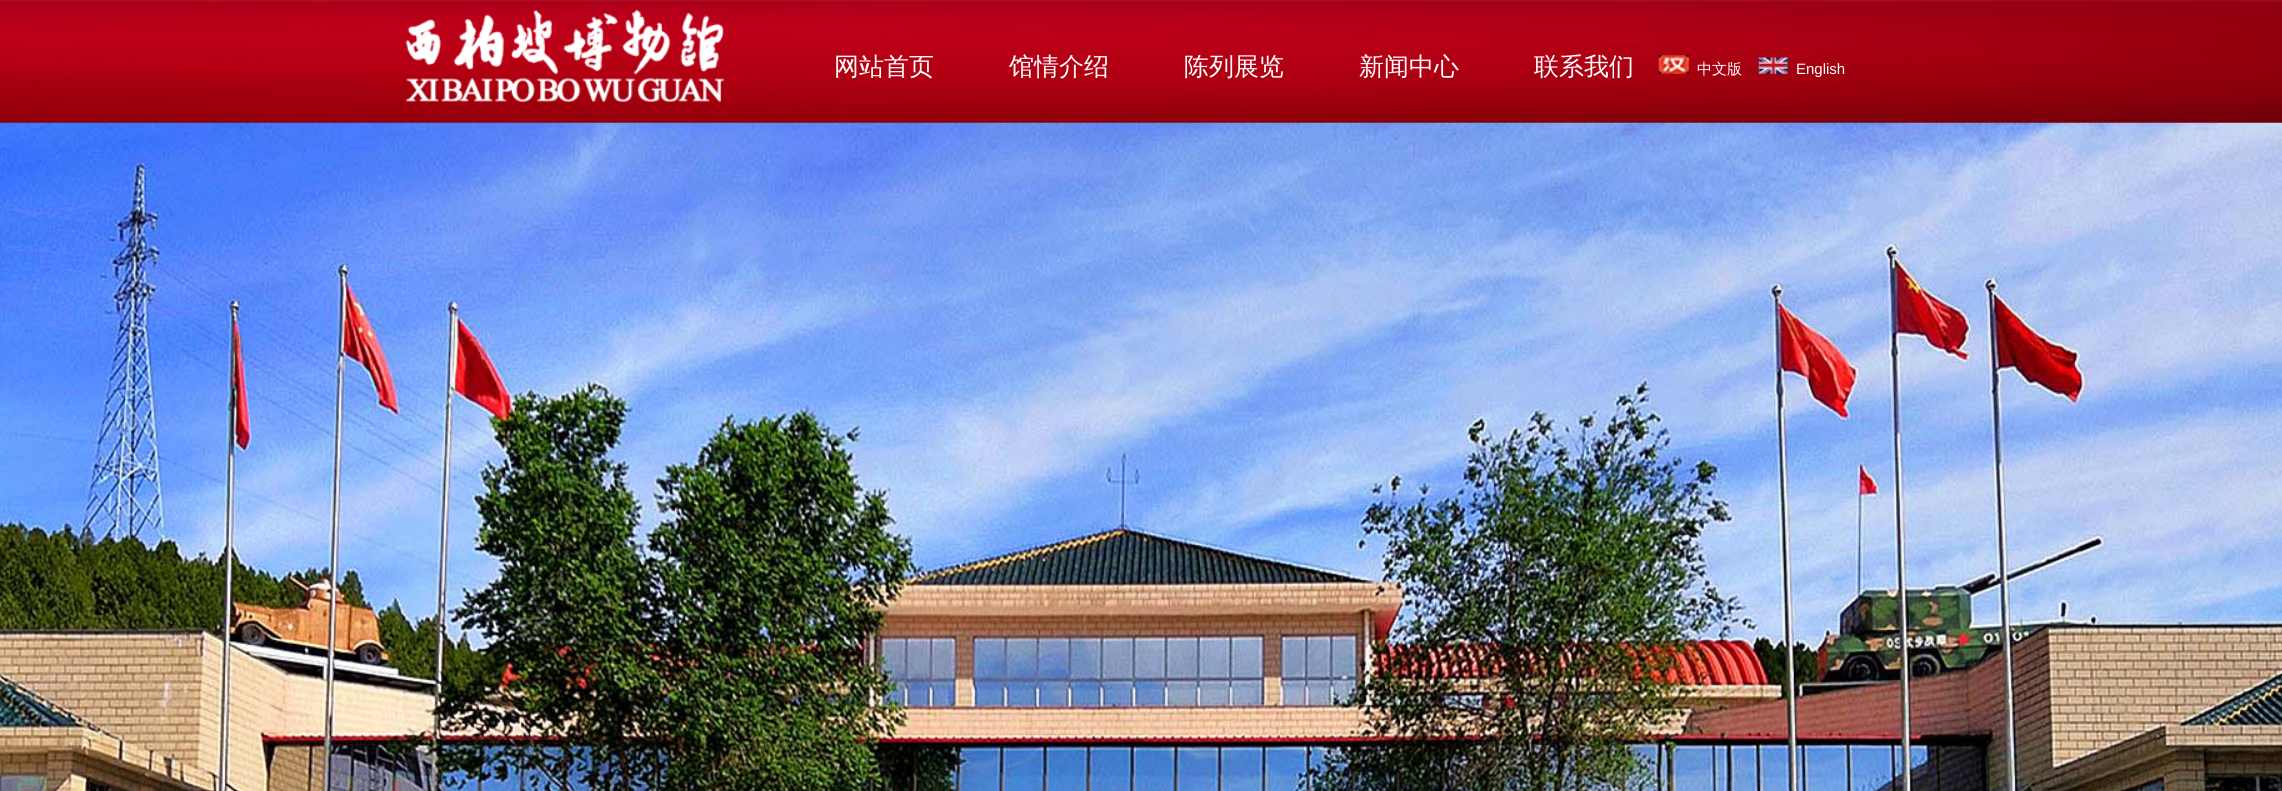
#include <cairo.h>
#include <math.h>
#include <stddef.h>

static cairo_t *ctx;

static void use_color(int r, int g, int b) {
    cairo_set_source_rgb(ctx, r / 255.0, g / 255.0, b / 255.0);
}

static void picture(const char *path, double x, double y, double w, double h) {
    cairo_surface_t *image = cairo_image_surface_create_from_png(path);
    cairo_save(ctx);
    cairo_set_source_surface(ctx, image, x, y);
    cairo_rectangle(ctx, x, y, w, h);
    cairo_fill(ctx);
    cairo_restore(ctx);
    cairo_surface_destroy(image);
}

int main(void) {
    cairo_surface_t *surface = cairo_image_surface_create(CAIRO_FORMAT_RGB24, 2282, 791);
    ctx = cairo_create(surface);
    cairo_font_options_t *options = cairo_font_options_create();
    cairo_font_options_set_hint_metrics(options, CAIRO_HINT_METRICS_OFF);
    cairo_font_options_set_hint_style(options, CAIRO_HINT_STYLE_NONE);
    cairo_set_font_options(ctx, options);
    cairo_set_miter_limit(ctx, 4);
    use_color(255, 255, 255);
    cairo_paint(ctx);
    picture("img1.png", 0, 0, 2282, 123);
    picture("img2.png", 405, 9, 320, 93);
    cairo_select_font_face(ctx, "WenQuanYi Zen Hei Medium", CAIRO_FONT_SLANT_NORMAL, CAIRO_FONT_WEIGHT_NORMAL);
    cairo_set_font_size(ctx, 25);
    use_color(255, 255, 255);
    cairo_move_to(ctx, 834, 75);
    cairo_show_text(ctx, "网站首页");
    cairo_move_to(ctx, 1009, 75);
    cairo_show_text(ctx, "馆情介绍");
    cairo_move_to(ctx, 1184, 75);
    cairo_show_text(ctx, "陈列展览");
    cairo_move_to(ctx, 1359, 75);
    cairo_show_text(ctx, "新闻中心");
    cairo_move_to(ctx, 1534, 75);
    cairo_show_text(ctx, "联系我们");
    picture("img3.png", 1658, 55, 31, 19);
    cairo_set_font_size(ctx, 15);
    cairo_move_to(ctx, 1697, 74);
    cairo_show_text(ctx, "中文版");
    picture("img4.png", 1758, 57, 30, 17);
    cairo_select_font_face(ctx, "Liberation Sans", CAIRO_FONT_SLANT_NORMAL, CAIRO_FONT_WEIGHT_NORMAL);
    cairo_move_to(ctx, 1796, 74);
    cairo_show_text(ctx, "English");
    picture("img5.png", 0, 122, 2282, 669);
    cairo_surface_write_to_png(surface, "result.png");
    cairo_font_options_destroy(options);
    cairo_destroy(ctx);
    cairo_surface_destroy(surface);
    return 0;
}
